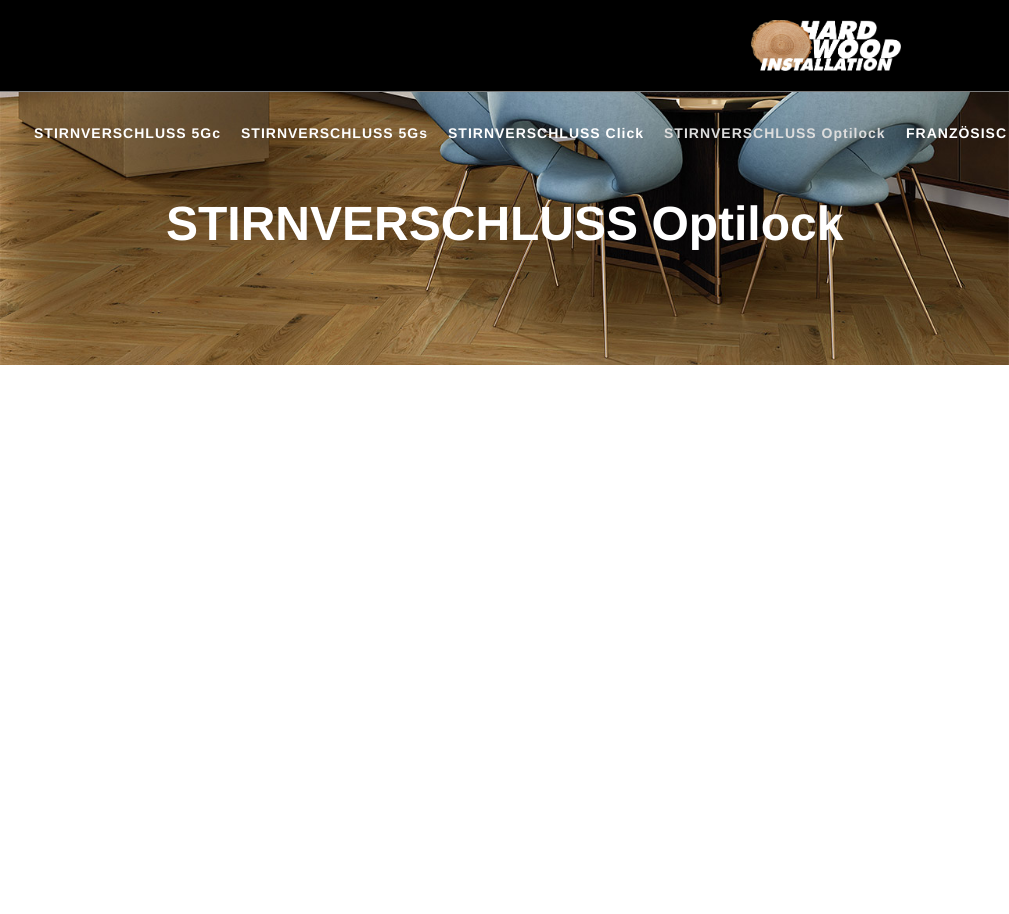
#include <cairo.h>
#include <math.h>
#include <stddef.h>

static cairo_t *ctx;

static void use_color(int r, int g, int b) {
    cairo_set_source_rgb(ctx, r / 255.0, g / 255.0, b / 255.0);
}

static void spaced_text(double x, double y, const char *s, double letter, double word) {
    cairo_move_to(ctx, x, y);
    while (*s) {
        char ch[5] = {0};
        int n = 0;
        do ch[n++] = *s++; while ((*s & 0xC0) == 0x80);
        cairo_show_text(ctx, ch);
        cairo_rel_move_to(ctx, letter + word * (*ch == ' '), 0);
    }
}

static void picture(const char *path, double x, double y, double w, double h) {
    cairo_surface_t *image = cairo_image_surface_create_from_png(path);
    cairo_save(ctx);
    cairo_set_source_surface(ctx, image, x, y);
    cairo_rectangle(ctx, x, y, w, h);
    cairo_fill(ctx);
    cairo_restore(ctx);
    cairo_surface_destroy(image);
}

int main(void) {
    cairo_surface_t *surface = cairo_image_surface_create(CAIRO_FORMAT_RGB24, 1009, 914);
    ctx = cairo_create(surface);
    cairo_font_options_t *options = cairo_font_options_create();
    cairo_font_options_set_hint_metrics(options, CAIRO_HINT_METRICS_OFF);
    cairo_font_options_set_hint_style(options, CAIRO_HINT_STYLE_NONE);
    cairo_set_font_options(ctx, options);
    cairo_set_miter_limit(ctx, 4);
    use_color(255, 255, 255);
    cairo_paint(ctx);
    use_color(0, 0, 0);
    cairo_rectangle(ctx, 0, 0, 1009, 91);
    cairo_fill(ctx);
    use_color(123, 123, 123);
    cairo_rectangle(ctx, 0, 91, 1009, 1);
    cairo_fill(ctx);
    picture("img1.png", 751, 20, 150, 51);
    picture("img2.png", 0, 92, 1009, 273);
    cairo_select_font_face(ctx, "Liberation Sans", CAIRO_FONT_SLANT_NORMAL, CAIRO_FONT_WEIGHT_BOLD);
    cairo_set_font_size(ctx, 14);
    use_color(255, 255, 255);
    spaced_text(34, 138, "STIRNVERSCHLUSS 5Gc", 1, 0);
    spaced_text(241, 138, "STIRNVERSCHLUSS 5Gs", 1, 0);
    spaced_text(448, 138, "STIRNVERSCHLUSS Click", 1, 0);
    use_color(221, 221, 221);
    spaced_text(664, 138, "STIRNVERSCHLUSS Optilock", 1, 0);
    use_color(255, 255, 255);
    spaced_text(906, 138, "FRANZÖSISC", 1, 0);
    cairo_set_font_size(ctx, 48);
    cairo_move_to(ctx, 166, 240);
    cairo_show_text(ctx, "STIRNVERSCHLUSS Optilock");
    cairo_surface_write_to_png(surface, "result.png");
    cairo_font_options_destroy(options);
    cairo_destroy(ctx);
    cairo_surface_destroy(surface);
    return 0;
}
